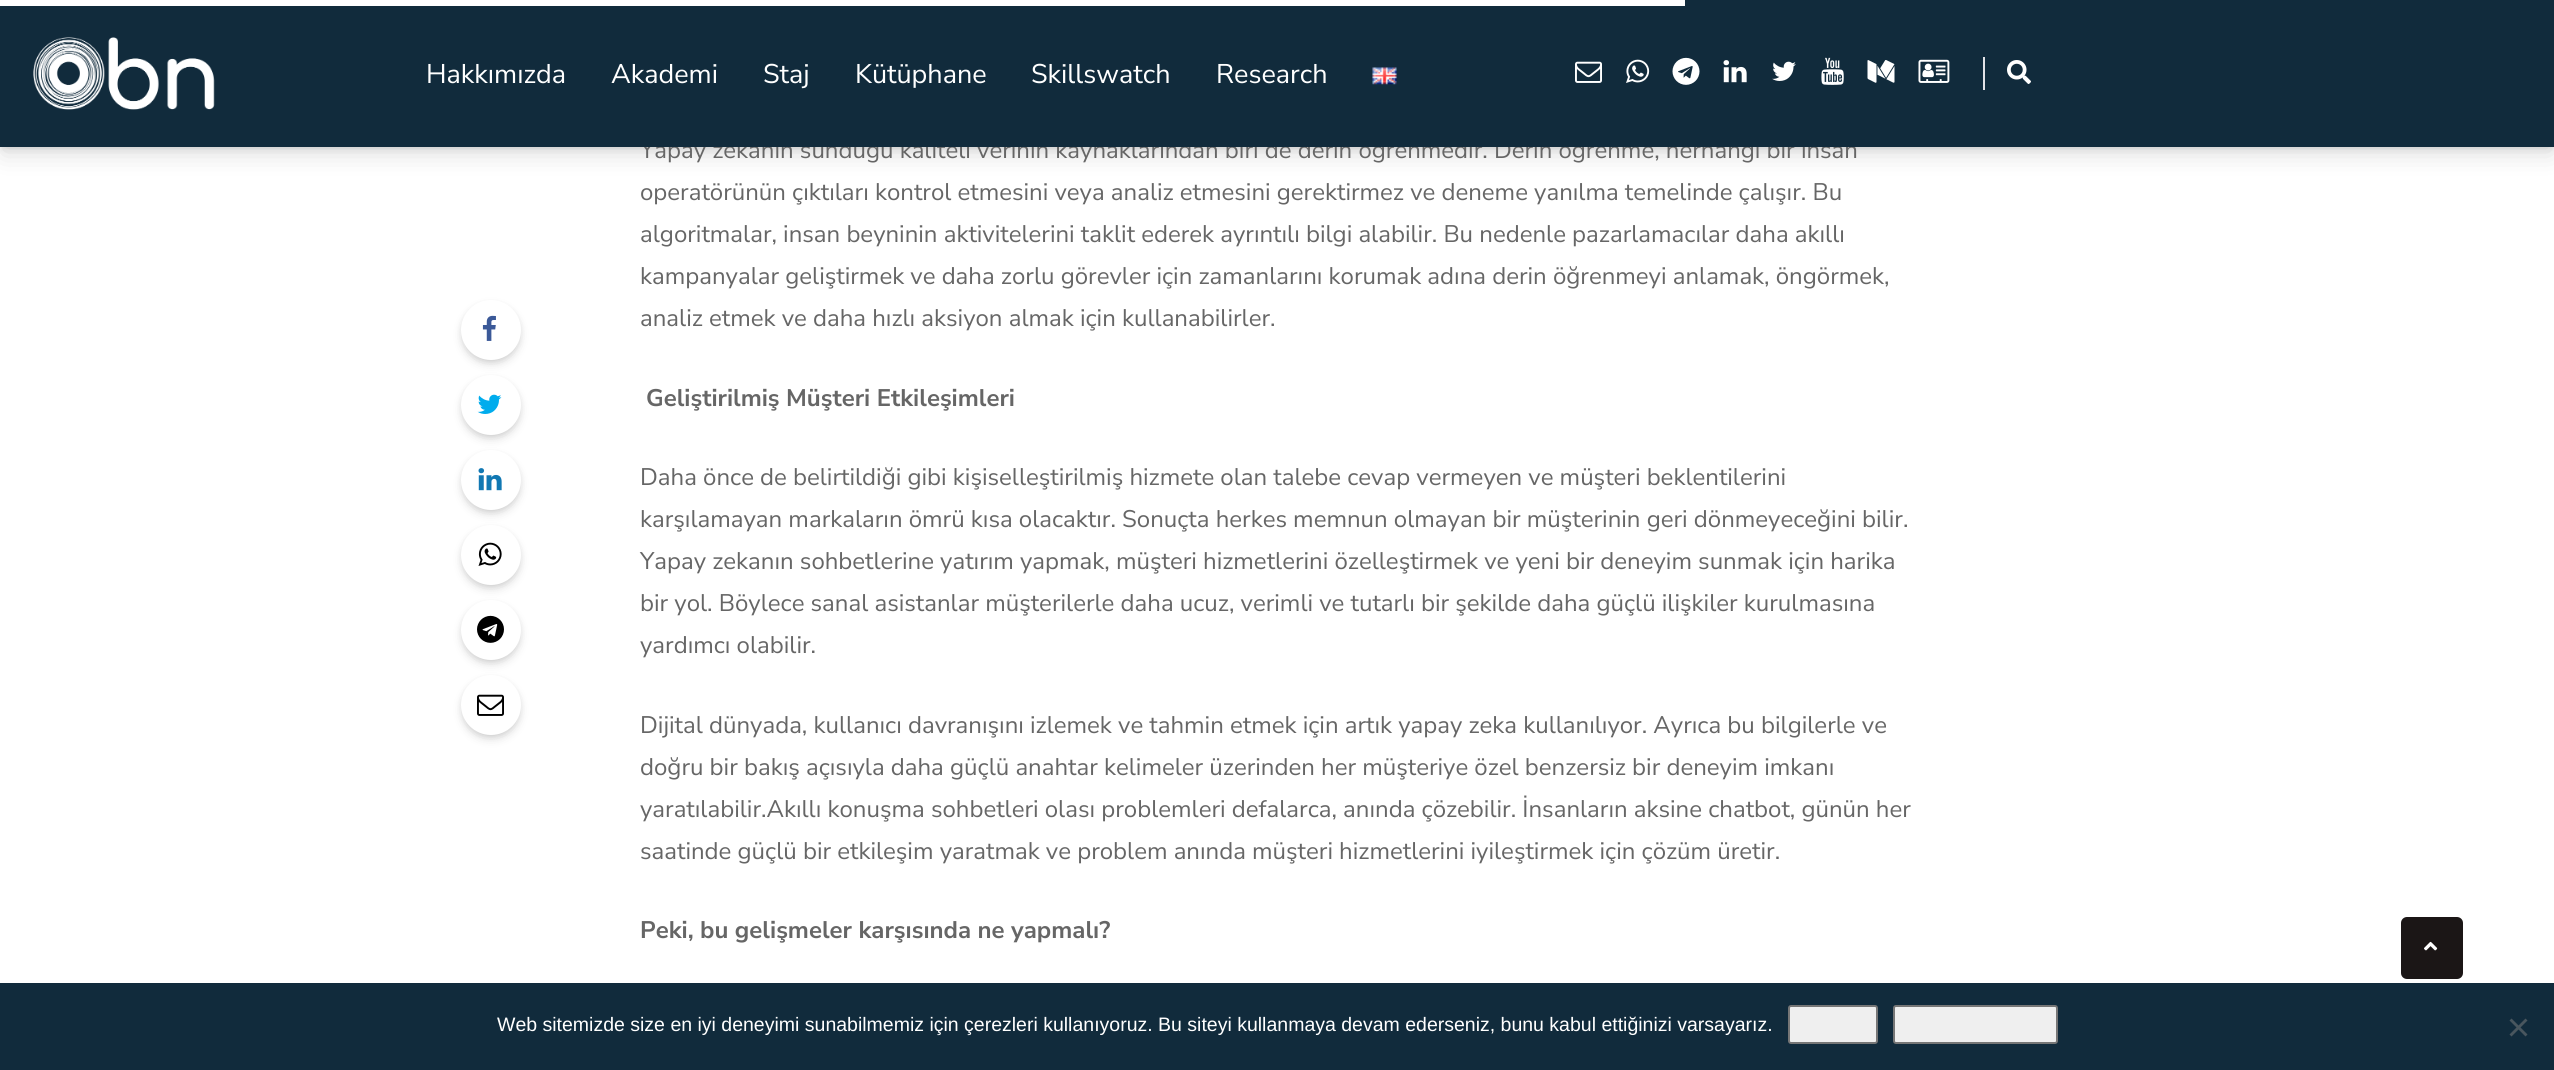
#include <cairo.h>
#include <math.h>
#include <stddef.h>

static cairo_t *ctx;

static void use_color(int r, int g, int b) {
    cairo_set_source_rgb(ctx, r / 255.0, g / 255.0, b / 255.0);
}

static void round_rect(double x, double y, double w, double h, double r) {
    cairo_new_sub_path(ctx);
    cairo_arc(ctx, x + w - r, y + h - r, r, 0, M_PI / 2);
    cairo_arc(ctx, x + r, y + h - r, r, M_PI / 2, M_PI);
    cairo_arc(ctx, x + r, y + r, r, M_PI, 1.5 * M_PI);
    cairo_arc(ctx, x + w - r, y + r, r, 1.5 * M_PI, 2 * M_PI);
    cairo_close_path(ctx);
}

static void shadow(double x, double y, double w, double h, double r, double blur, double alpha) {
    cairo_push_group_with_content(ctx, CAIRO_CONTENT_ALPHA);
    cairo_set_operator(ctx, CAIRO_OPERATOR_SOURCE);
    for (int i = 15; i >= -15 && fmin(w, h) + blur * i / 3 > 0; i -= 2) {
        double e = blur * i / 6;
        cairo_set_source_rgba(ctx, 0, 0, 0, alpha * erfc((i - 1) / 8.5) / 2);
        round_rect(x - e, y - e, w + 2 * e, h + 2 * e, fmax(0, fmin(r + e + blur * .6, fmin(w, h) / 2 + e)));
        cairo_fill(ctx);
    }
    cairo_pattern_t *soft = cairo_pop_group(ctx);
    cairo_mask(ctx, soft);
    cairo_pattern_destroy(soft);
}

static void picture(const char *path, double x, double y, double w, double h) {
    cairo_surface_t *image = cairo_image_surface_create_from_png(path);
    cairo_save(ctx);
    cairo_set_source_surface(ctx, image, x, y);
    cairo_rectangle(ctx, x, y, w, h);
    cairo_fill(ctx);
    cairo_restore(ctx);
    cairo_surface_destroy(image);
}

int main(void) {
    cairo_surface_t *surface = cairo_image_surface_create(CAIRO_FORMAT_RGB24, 2554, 1070);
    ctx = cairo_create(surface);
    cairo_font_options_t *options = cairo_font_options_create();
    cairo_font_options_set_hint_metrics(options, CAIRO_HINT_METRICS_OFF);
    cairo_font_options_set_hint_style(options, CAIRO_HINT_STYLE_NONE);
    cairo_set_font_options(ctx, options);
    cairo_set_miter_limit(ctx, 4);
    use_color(255, 255, 255);
    cairo_paint(ctx);
    use_color(0, 0, 0);
    shadow(3, 11, 2549, 141, 0, 13, 0.15);
    shadow(3, 6, 2549, 141, 0, 4, 0.15);
    cairo_select_font_face(ctx, "Nunito Sans", CAIRO_FONT_SLANT_NORMAL, CAIRO_FONT_WEIGHT_NORMAL);
    cairo_set_font_size(ctx, 24);
    use_color(102, 102, 102);
    cairo_move_to(ctx, 640, 158);
    cairo_show_text(ctx, "Yapay zekanın sunduğu kaliteli verinin kaynaklarından biri de derin öğrenmedir. Derin öğrenme, herhangi bir insan");
    use_color(17, 43, 60);
    cairo_rectangle(ctx, 0, 0, 2554, 147);
    cairo_fill(ctx);
    use_color(255, 255, 255);
    cairo_rectangle(ctx, 0, 0, 1685, 6);
    cairo_fill(ctx);
    picture("img1.png", 33, 37, 182, 73);
    cairo_set_font_size(ctx, 27);
    cairo_move_to(ctx, 426, 83);
    cairo_show_text(ctx, "Hakkımızda");
    cairo_move_to(ctx, 611, 83);
    cairo_show_text(ctx, "Akademi");
    cairo_move_to(ctx, 763, 83);
    cairo_show_text(ctx, "Staj");
    cairo_move_to(ctx, 855, 83);
    cairo_show_text(ctx, "Kütüphane");
    cairo_move_to(ctx, 1031, 83);
    cairo_show_text(ctx, "Skillswatch");
    cairo_move_to(ctx, 1216, 83);
    cairo_show_text(ctx, "Research");
    picture("img2.png", 1372, 67, 25, 18);
    picture("img3.png", 1575, 61, 27, 22);
    picture("img4.png", 1626, 59, 24, 24);
    picture("img5.png", 1672, 57, 28, 28);
    picture("img6.png", 1723, 60, 24, 23);
    picture("img7.png", 1772, 61, 24, 20);
    picture("img8.png", 1821, 57, 23, 28);
    picture("img9.png", 1867, 60, 28, 23);
    picture("img10.png", 1918, 59, 32, 24);
    use_color(226, 227, 231);
    cairo_rectangle(ctx, 1983, 57, 2, 33);
    cairo_fill(ctx);
    picture("img11.png", 2007, 60, 24, 24);
    use_color(0, 0, 0);
    shadow(464, 308, 54, 54, 27, 6, 0.15);
    shadow(464, 306, 54, 54, 27, 4, 0.15);
    use_color(255, 255, 255);
    cairo_arc(ctx, 491, 330, 30, 0, 2 * M_PI);
    cairo_fill(ctx);
    picture("img12.png", 482, 315, 14, 26);
    use_color(0, 0, 0);
    shadow(464, 383, 54, 54, 27, 6, 0.15);
    shadow(464, 381, 54, 54, 27, 4, 0.15);
    use_color(255, 255, 255);
    cairo_arc(ctx, 491, 405, 30, 0, 2 * M_PI);
    cairo_fill(ctx);
    picture("img13.png", 477, 394, 25, 20);
    use_color(0, 0, 0);
    shadow(464, 458, 54, 54, 27, 6, 0.15);
    shadow(464, 456, 54, 54, 27, 4, 0.15);
    use_color(255, 255, 255);
    cairo_arc(ctx, 491, 480, 30, 0, 2 * M_PI);
    cairo_fill(ctx);
    picture("img14.png", 478, 468, 24, 23);
    use_color(0, 0, 0);
    shadow(464, 533, 54, 54, 27, 6, 0.15);
    shadow(464, 531, 54, 54, 27, 4, 0.15);
    use_color(255, 255, 255);
    cairo_arc(ctx, 491, 555, 30, 0, 2 * M_PI);
    cairo_fill(ctx);
    picture("img15.png", 478, 542, 24, 24);
    use_color(0, 0, 0);
    shadow(464, 608, 54, 54, 27, 6, 0.15);
    shadow(464, 606, 54, 54, 27, 4, 0.15);
    use_color(255, 255, 255);
    cairo_arc(ctx, 491, 630, 30, 0, 2 * M_PI);
    cairo_fill(ctx);
    picture("img16.png", 477, 615, 27, 28);
    use_color(0, 0, 0);
    shadow(464, 683, 54, 54, 27, 6, 0.15);
    shadow(464, 681, 54, 54, 27, 4, 0.15);
    use_color(255, 255, 255);
    cairo_arc(ctx, 491, 705, 30, 0, 2 * M_PI);
    cairo_fill(ctx);
    picture("img17.png", 477, 694, 27, 22);
    cairo_set_font_size(ctx, 24);
    use_color(102, 102, 102);
    cairo_move_to(ctx, 640, 200);
    cairo_show_text(ctx, "operatörünün çıktıları kontrol etmesini veya analiz etmesini gerektirmez ve deneme yanılma temelinde çalışır. Bu");
    cairo_move_to(ctx, 640, 242);
    cairo_show_text(ctx, "algoritmalar, insan beyninin aktivitelerini taklit ederek ayrıntılı bilgi alabilir. Bu nedenle pazarlamacılar daha akıllı");
    cairo_move_to(ctx, 640, 284);
    cairo_show_text(ctx, "kampanyalar geliştirmek ve daha zorlu görevler için zamanlarını korumak adına derin öğrenmeyi anlamak, öngörmek,");
    cairo_move_to(ctx, 640, 326);
    cairo_show_text(ctx, "analiz etmek ve daha hızlı aksiyon almak için kullanabilirler.");
    cairo_select_font_face(ctx, "Nunito Sans", CAIRO_FONT_SLANT_NORMAL, CAIRO_FONT_WEIGHT_BOLD);
    cairo_move_to(ctx, 646, 406);
    cairo_show_text(ctx, "Geliştirilmiş Müşteri Etkileşimleri");
    cairo_select_font_face(ctx, "Nunito Sans", CAIRO_FONT_SLANT_NORMAL, CAIRO_FONT_WEIGHT_NORMAL);
    cairo_move_to(ctx, 640, 485);
    cairo_show_text(ctx, "Daha önce de belirtildiği gibi kişiselleştirilmiş hizmete olan talebe cevap vermeyen ve müşteri beklentilerini");
    cairo_move_to(ctx, 640, 527);
    cairo_show_text(ctx, "karşılamayan markaların ömrü kısa olacaktır. Sonuçta herkes memnun olmayan bir müşterinin geri dönmeyeceğini bilir.");
    cairo_move_to(ctx, 640, 569);
    cairo_show_text(ctx, "Yapay zekanın sohbetlerine yatırım yapmak, müşteri hizmetlerini özelleştirmek ve yeni bir deneyim sunmak için harika");
    cairo_move_to(ctx, 640, 611);
    cairo_show_text(ctx, "bir yol. Böylece sanal asistanlar müşterilerle daha ucuz, verimli ve tutarlı bir şekilde daha güçlü ilişkiler kurulmasına");
    cairo_move_to(ctx, 640, 653);
    cairo_show_text(ctx, "yardımcı olabilir.");
    cairo_move_to(ctx, 640, 733);
    cairo_show_text(ctx, "Dijital dünyada, kullanıcı davranışını izlemek ve tahmin etmek için artık yapay zeka kullanılıyor. Ayrıca bu bilgilerle ve");
    cairo_move_to(ctx, 640, 775);
    cairo_show_text(ctx, "doğru bir bakış açısıyla daha güçlü anahtar kelimeler üzerinden her müşteriye özel benzersiz bir deneyim imkanı");
    cairo_move_to(ctx, 640, 817);
    cairo_show_text(ctx, "yaratılabilir.Akıllı konuşma sohbetleri olası problemleri defalarca, anında çözebilir. İnsanların aksine chatbot, günün her");
    cairo_move_to(ctx, 640, 859);
    cairo_show_text(ctx, "saatinde güçlü bir etkileşim yaratmak ve problem anında müşteri hizmetlerini iyileştirmek için çözüm üretir.");
    cairo_select_font_face(ctx, "Nunito Sans", CAIRO_FONT_SLANT_NORMAL, CAIRO_FONT_WEIGHT_BOLD);
    cairo_move_to(ctx, 640, 938);
    cairo_show_text(ctx, "Peki, bu gelişmeler karşısında ne yapmalı?");
    use_color(27, 22, 22);
    round_rect(2400, 916, 64, 64, 7);
    cairo_fill_preserve(ctx);
    use_color(255, 255, 255);
    cairo_stroke(ctx);
    picture("img18.png", 2424, 941, 14, 10);
    use_color(17, 43, 60);
    cairo_rectangle(ctx, 0, 983, 2554, 87);
    cairo_fill(ctx);
    cairo_select_font_face(ctx, "Liberation Sans", CAIRO_FONT_SLANT_NORMAL, CAIRO_FONT_WEIGHT_NORMAL);
    cairo_set_font_size(ctx, 19.5);
    use_color(255, 255, 255);
    cairo_move_to(ctx, 497, 1031);
    cairo_show_text(ctx, "Web sitemizde size en iyi deneyimi sunabilmemiz için çerezleri kullanıyoruz. Bu siteyi kullanmaya devam ederseniz, bunu kabul ettiğinizi varsayarız.");
    use_color(239, 239, 239);
    round_rect(1789, 1006, 88, 37, 2);
    cairo_fill_preserve(ctx);
    use_color(118, 118, 118);
    cairo_stroke(ctx);
    use_color(239, 239, 239);
    round_rect(1894, 1006, 163, 37, 2);
    cairo_fill_preserve(ctx);
    use_color(118, 118, 118);
    cairo_stroke(ctx);
    use_color(73, 86, 94);
    cairo_new_path(ctx);
    cairo_move_to(ctx, 2525.5, 1018.5);
    cairo_line_to(ctx, 2527.5, 1020.5);
    cairo_line_to(ctx, 2511.5, 1036.5);
    cairo_line_to(ctx, 2509.5, 1034.5);
    cairo_close_path(ctx);
    cairo_fill(ctx);
    cairo_new_path(ctx);
    cairo_move_to(ctx, 2509.5, 1020.5);
    cairo_line_to(ctx, 2511.5, 1018.5);
    cairo_line_to(ctx, 2527.5, 1034.5);
    cairo_line_to(ctx, 2525.5, 1036.5);
    cairo_close_path(ctx);
    cairo_fill(ctx);
    cairo_surface_write_to_png(surface, "result.png");
    cairo_font_options_destroy(options);
    cairo_destroy(ctx);
    cairo_surface_destroy(surface);
    return 0;
}
